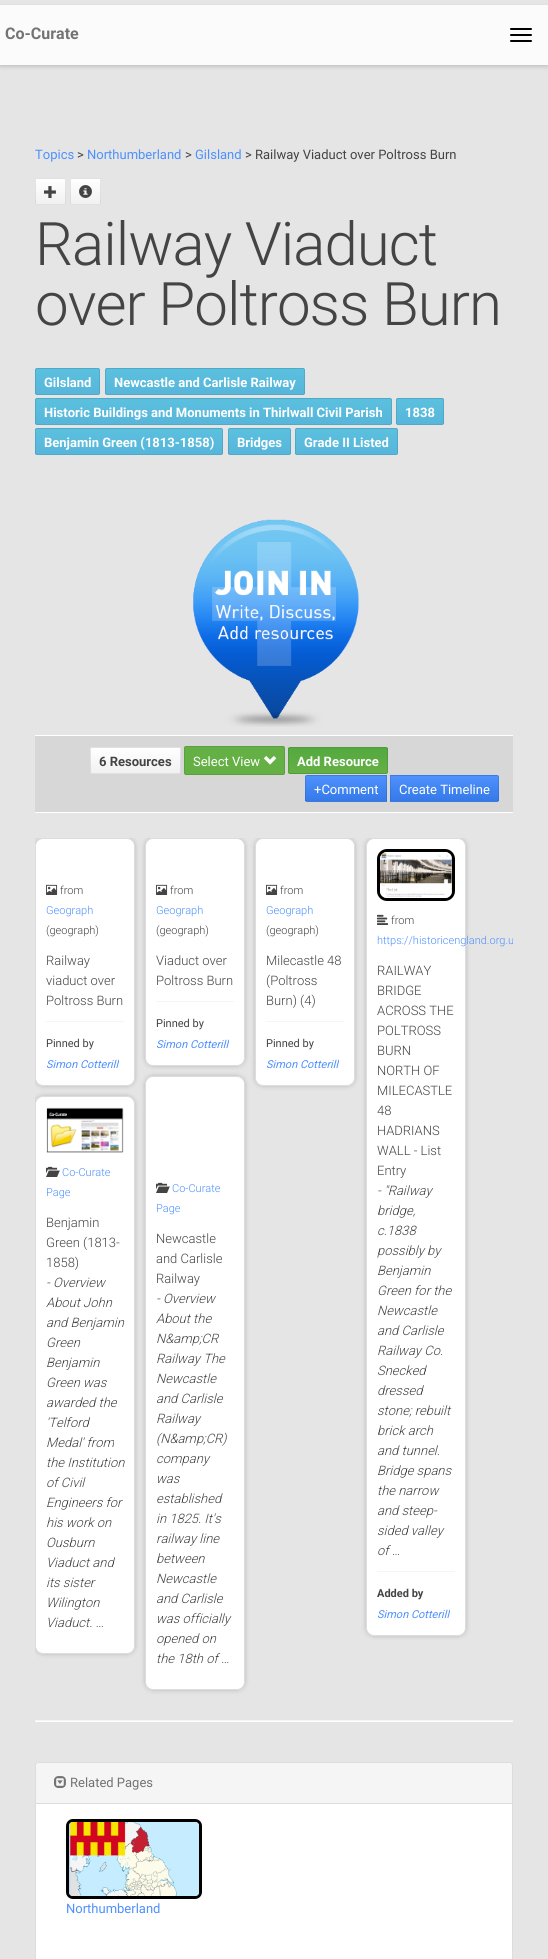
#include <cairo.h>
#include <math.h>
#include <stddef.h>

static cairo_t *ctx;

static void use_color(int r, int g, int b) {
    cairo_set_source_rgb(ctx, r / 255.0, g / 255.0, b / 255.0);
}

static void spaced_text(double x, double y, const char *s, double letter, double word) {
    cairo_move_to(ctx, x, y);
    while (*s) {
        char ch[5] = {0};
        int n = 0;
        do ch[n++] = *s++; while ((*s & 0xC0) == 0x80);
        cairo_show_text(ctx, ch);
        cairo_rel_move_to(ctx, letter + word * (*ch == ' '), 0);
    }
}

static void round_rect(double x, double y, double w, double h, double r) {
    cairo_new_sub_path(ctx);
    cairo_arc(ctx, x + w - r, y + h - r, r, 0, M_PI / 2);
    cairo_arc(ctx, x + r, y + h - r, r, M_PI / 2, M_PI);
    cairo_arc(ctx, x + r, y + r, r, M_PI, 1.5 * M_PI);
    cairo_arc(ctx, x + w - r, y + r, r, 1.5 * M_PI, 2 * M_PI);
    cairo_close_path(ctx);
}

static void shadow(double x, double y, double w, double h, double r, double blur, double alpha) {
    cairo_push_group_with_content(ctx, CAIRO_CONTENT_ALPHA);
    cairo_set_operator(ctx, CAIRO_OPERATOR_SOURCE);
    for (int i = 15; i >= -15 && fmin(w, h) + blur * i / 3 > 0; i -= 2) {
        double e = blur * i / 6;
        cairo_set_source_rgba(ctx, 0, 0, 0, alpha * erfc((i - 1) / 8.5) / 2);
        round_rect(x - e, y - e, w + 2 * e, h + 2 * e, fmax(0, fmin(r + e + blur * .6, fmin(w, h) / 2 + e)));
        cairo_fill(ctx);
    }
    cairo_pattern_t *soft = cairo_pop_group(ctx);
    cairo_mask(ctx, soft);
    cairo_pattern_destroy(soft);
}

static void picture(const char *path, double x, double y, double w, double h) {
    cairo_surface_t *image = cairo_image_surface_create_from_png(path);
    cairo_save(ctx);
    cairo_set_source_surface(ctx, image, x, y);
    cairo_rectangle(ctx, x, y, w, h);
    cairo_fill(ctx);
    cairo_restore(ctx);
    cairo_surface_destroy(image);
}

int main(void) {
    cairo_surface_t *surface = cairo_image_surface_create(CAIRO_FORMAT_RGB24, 548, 1959);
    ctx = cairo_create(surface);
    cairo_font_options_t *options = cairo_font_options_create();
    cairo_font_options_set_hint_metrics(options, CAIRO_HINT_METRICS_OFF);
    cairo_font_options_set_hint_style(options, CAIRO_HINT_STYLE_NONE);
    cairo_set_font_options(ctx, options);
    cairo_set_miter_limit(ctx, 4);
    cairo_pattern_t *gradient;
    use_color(229, 229, 229);
    cairo_paint(ctx);
    use_color(0, 0, 0);
    shadow(0, 7, 548, 60, 0, 2, 0.15);
    use_color(251, 251, 251);
    cairo_rectangle(ctx, 0, 5, 548, 60);
    cairo_fill(ctx);
    cairo_select_font_face(ctx, "Roboto", CAIRO_FONT_SLANT_NORMAL, CAIRO_FONT_WEIGHT_BOLD);
    cairo_set_font_size(ctx, 16);
    use_color(115, 115, 115);
    cairo_move_to(ctx, 5, 39);
    cairo_show_text(ctx, "Co-Curate");
    use_color(0, 0, 0);
    round_rect(510, 28, 22, 2, 1);
    cairo_fill(ctx);
    round_rect(510, 34, 22, 2, 1);
    cairo_fill(ctx);
    round_rect(510, 40, 22, 2, 1);
    cairo_fill(ctx);
    cairo_select_font_face(ctx, "Roboto", CAIRO_FONT_SLANT_NORMAL, CAIRO_FONT_WEIGHT_NORMAL);
    cairo_set_font_size(ctx, 13);
    use_color(77, 144, 254);
    cairo_move_to(ctx, 35, 159);
    cairo_show_text(ctx, "Topics");
    use_color(68, 68, 68);
    cairo_move_to(ctx, 77, 159);
    cairo_show_text(ctx, ">");
    use_color(77, 144, 254);
    cairo_move_to(ctx, 87, 159);
    cairo_show_text(ctx, "Northumberland");
    use_color(68, 68, 68);
    cairo_move_to(ctx, 185, 159);
    cairo_show_text(ctx, ">");
    use_color(77, 144, 254);
    cairo_move_to(ctx, 195, 159);
    cairo_show_text(ctx, "Gilsland");
    use_color(68, 68, 68);
    cairo_move_to(ctx, 245, 159);
    cairo_show_text(ctx, "> Railway Viaduct over Poltross Burn");
    use_color(249, 249, 249);
    round_rect(35, 178, 31, 27, 2);
    cairo_fill(ctx);
    cairo_save(ctx);
    round_rect(35, 178, 31, 27, 2);
    cairo_clip(ctx);
    gradient = cairo_pattern_create_linear(51, 179, 51, 204);
    cairo_pattern_add_color_stop_rgba(gradient, 0, 1, 1, 1, 1);
    cairo_pattern_add_color_stop_rgba(gradient, 1, 0.945, 0.945, 0.945, 1);
    cairo_set_source(ctx, gradient);
    cairo_pattern_destroy(gradient);
    cairo_rectangle(ctx, 35, 179, 31, 25);
    cairo_fill(ctx);
    cairo_restore(ctx);
    round_rect(35.5, 178.5, 30, 26, 1.5);
    cairo_set_source_rgba(ctx, 0, 0, 0, 0.1);
    cairo_set_line_width(ctx, 1);
    cairo_stroke(ctx);
    picture("img1.png", 44, 186, 12, 12);
    use_color(249, 249, 249);
    round_rect(70, 178, 31, 27, 2);
    cairo_fill(ctx);
    cairo_save(ctx);
    round_rect(70, 178, 31, 27, 2);
    cairo_clip(ctx);
    gradient = cairo_pattern_create_linear(86, 179, 86, 204);
    cairo_pattern_add_color_stop_rgba(gradient, 0, 1, 1, 1, 1);
    cairo_pattern_add_color_stop_rgba(gradient, 1, 0.945, 0.945, 0.945, 1);
    cairo_set_source(ctx, gradient);
    cairo_pattern_destroy(gradient);
    cairo_rectangle(ctx, 70, 179, 31, 25);
    cairo_fill(ctx);
    cairo_restore(ctx);
    round_rect(70.5, 178.5, 30, 26, 1.5);
    cairo_set_source_rgba(ctx, 0, 0, 0, 0.1);
    cairo_stroke(ctx);
    picture("img2.png", 79, 185, 13, 13);
    cairo_select_font_face(ctx, "Roboto Light", CAIRO_FONT_SLANT_NORMAL, CAIRO_FONT_WEIGHT_NORMAL);
    cairo_set_font_size(ctx, 60);
    use_color(68, 68, 68);
    spaced_text(35, 265, "Railway Viaduct", -1, 0);
    spaced_text(35, 325, "over Poltross Burn", -1, 0);
    use_color(89, 188, 221);
    round_rect(35, 368, 65, 27, 2);
    cairo_fill(ctx);
    cairo_save(ctx);
    round_rect(35, 368, 65, 27, 2);
    cairo_clip(ctx);
    gradient = cairo_pattern_create_linear(68, 369, 68, 394);
    cairo_pattern_add_color_stop_rgba(gradient, 0, 0.357, 0.753, 0.871, 1);
    cairo_pattern_add_color_stop_rgba(gradient, 1, 0.341, 0.714, 0.859, 1);
    cairo_set_source(ctx, gradient);
    cairo_pattern_destroy(gradient);
    cairo_rectangle(ctx, 35, 369, 65, 25);
    cairo_fill(ctx);
    cairo_restore(ctx);
    round_rect(35.5, 368.5, 64, 26, 1.5);
    cairo_set_source_rgba(ctx, 0, 0, 0, 0.1);
    cairo_stroke(ctx);
    cairo_select_font_face(ctx, "Roboto", CAIRO_FONT_SLANT_NORMAL, CAIRO_FONT_WEIGHT_BOLD);
    cairo_set_font_size(ctx, 13);
    use_color(255, 255, 255);
    cairo_move_to(ctx, 44, 387);
    cairo_show_text(ctx, "Gilsland");
    use_color(89, 188, 221);
    round_rect(105, 368, 200, 27, 2);
    cairo_fill(ctx);
    cairo_save(ctx);
    round_rect(105, 368, 200, 27, 2);
    cairo_clip(ctx);
    gradient = cairo_pattern_create_linear(205, 369, 205, 394);
    cairo_pattern_add_color_stop_rgba(gradient, 0, 0.357, 0.753, 0.871, 1);
    cairo_pattern_add_color_stop_rgba(gradient, 1, 0.341, 0.714, 0.859, 1);
    cairo_set_source(ctx, gradient);
    cairo_pattern_destroy(gradient);
    cairo_rectangle(ctx, 105, 369, 200, 25);
    cairo_fill(ctx);
    cairo_restore(ctx);
    round_rect(105.5, 368.5, 199, 26, 1.5);
    cairo_set_source_rgba(ctx, 0, 0, 0, 0.1);
    cairo_stroke(ctx);
    use_color(255, 255, 255);
    cairo_move_to(ctx, 114, 387);
    cairo_show_text(ctx, "Newcastle and Carlisle Railway");
    use_color(89, 188, 221);
    round_rect(35, 398, 357, 27, 2);
    cairo_fill(ctx);
    cairo_save(ctx);
    round_rect(35, 398, 357, 27, 2);
    cairo_clip(ctx);
    gradient = cairo_pattern_create_linear(214, 399, 214, 424);
    cairo_pattern_add_color_stop_rgba(gradient, 0, 0.357, 0.753, 0.871, 1);
    cairo_pattern_add_color_stop_rgba(gradient, 1, 0.341, 0.714, 0.859, 1);
    cairo_set_source(ctx, gradient);
    cairo_pattern_destroy(gradient);
    cairo_rectangle(ctx, 35, 399, 357, 25);
    cairo_fill(ctx);
    cairo_restore(ctx);
    round_rect(35.5, 398.5, 356, 26, 1.5);
    cairo_set_source_rgba(ctx, 0, 0, 0, 0.1);
    cairo_stroke(ctx);
    use_color(255, 255, 255);
    cairo_move_to(ctx, 44, 417);
    cairo_show_text(ctx, "Historic Buildings and Monuments in Thirlwall Civil Parish");
    use_color(89, 188, 221);
    round_rect(396, 398, 48, 27, 2);
    cairo_fill(ctx);
    cairo_save(ctx);
    round_rect(396, 398, 48, 27, 2);
    cairo_clip(ctx);
    gradient = cairo_pattern_create_linear(420, 399, 420, 424);
    cairo_pattern_add_color_stop_rgba(gradient, 0, 0.357, 0.753, 0.871, 1);
    cairo_pattern_add_color_stop_rgba(gradient, 1, 0.341, 0.714, 0.859, 1);
    cairo_set_source(ctx, gradient);
    cairo_pattern_destroy(gradient);
    cairo_rectangle(ctx, 396, 399, 48, 25);
    cairo_fill(ctx);
    cairo_restore(ctx);
    round_rect(396.5, 398.5, 47, 26, 1.5);
    cairo_set_source_rgba(ctx, 0, 0, 0, 0.1);
    cairo_stroke(ctx);
    use_color(255, 255, 255);
    cairo_move_to(ctx, 405, 417);
    cairo_show_text(ctx, "1838");
    use_color(89, 188, 221);
    round_rect(35, 428, 188, 27, 2);
    cairo_fill(ctx);
    cairo_save(ctx);
    round_rect(35, 428, 188, 27, 2);
    cairo_clip(ctx);
    gradient = cairo_pattern_create_linear(129, 429, 129, 454);
    cairo_pattern_add_color_stop_rgba(gradient, 0, 0.357, 0.753, 0.871, 1);
    cairo_pattern_add_color_stop_rgba(gradient, 1, 0.341, 0.714, 0.859, 1);
    cairo_set_source(ctx, gradient);
    cairo_pattern_destroy(gradient);
    cairo_rectangle(ctx, 35, 429, 188, 25);
    cairo_fill(ctx);
    cairo_restore(ctx);
    round_rect(35.5, 428.5, 187, 26, 1.5);
    cairo_set_source_rgba(ctx, 0, 0, 0, 0.1);
    cairo_stroke(ctx);
    use_color(255, 255, 255);
    cairo_move_to(ctx, 44, 447);
    cairo_show_text(ctx, "Benjamin Green (1813-1858)");
    use_color(89, 188, 221);
    round_rect(228, 428, 63, 27, 2);
    cairo_fill(ctx);
    cairo_save(ctx);
    round_rect(228, 428, 63, 27, 2);
    cairo_clip(ctx);
    gradient = cairo_pattern_create_linear(260, 429, 260, 454);
    cairo_pattern_add_color_stop_rgba(gradient, 0, 0.357, 0.753, 0.871, 1);
    cairo_pattern_add_color_stop_rgba(gradient, 1, 0.341, 0.714, 0.859, 1);
    cairo_set_source(ctx, gradient);
    cairo_pattern_destroy(gradient);
    cairo_rectangle(ctx, 228, 429, 63, 25);
    cairo_fill(ctx);
    cairo_restore(ctx);
    round_rect(228.5, 428.5, 62, 26, 1.5);
    cairo_set_source_rgba(ctx, 0, 0, 0, 0.1);
    cairo_stroke(ctx);
    use_color(255, 255, 255);
    cairo_move_to(ctx, 237, 447);
    cairo_show_text(ctx, "Bridges");
    use_color(89, 188, 221);
    round_rect(295, 428, 103, 27, 2);
    cairo_fill(ctx);
    cairo_save(ctx);
    round_rect(295, 428, 103, 27, 2);
    cairo_clip(ctx);
    gradient = cairo_pattern_create_linear(347, 429, 347, 454);
    cairo_pattern_add_color_stop_rgba(gradient, 0, 0.357, 0.753, 0.871, 1);
    cairo_pattern_add_color_stop_rgba(gradient, 1, 0.341, 0.714, 0.859, 1);
    cairo_set_source(ctx, gradient);
    cairo_pattern_destroy(gradient);
    cairo_rectangle(ctx, 295, 429, 103, 25);
    cairo_fill(ctx);
    cairo_restore(ctx);
    round_rect(295.5, 428.5, 102, 26, 1.5);
    cairo_set_source_rgba(ctx, 0, 0, 0, 0.1);
    cairo_stroke(ctx);
    use_color(255, 255, 255);
    cairo_move_to(ctx, 304, 447);
    cairo_show_text(ctx, "Grade II Listed");
    picture("img3.png", 193, 519, 166, 208);
    use_color(215, 215, 215);
    cairo_rectangle(ctx, 35, 736, 478, 76);
    cairo_fill(ctx);
    use_color(255, 255, 255);
    cairo_rectangle(ctx, 35, 735, 478, 1);
    cairo_fill(ctx);
    cairo_rectangle(ctx, 35, 812, 478, 1);
    cairo_fill(ctx);
    use_color(249, 249, 249);
    round_rect(90, 747, 91, 27, 2);
    cairo_fill(ctx);
    cairo_save(ctx);
    round_rect(90, 747, 91, 27, 2);
    cairo_clip(ctx);
    gradient = cairo_pattern_create_linear(136, 748, 136, 773);
    cairo_pattern_add_color_stop_rgba(gradient, 0, 1, 1, 1, 1);
    cairo_pattern_add_color_stop_rgba(gradient, 1, 0.945, 0.945, 0.945, 1);
    cairo_set_source(ctx, gradient);
    cairo_pattern_destroy(gradient);
    cairo_rectangle(ctx, 90, 748, 91, 25);
    cairo_fill(ctx);
    cairo_restore(ctx);
    round_rect(90.5, 747.5, 90, 26, 1.5);
    cairo_set_source_rgba(ctx, 0, 0, 0, 0.1);
    cairo_stroke(ctx);
    use_color(68, 68, 68);
    cairo_move_to(ctx, 99, 766);
    cairo_show_text(ctx, "6 Resources");
    use_color(101, 176, 69);
    round_rect(184, 746, 101, 29, 2);
    cairo_fill(ctx);
    round_rect(184.5, 746.5, 100, 28, 1.5);
    cairo_set_source_rgba(ctx, 0, 0, 0, 0.1);
    cairo_stroke(ctx);
    cairo_select_font_face(ctx, "Roboto", CAIRO_FONT_SLANT_NORMAL, CAIRO_FONT_WEIGHT_NORMAL);
    use_color(255, 255, 255);
    cairo_move_to(ctx, 193, 766);
    cairo_show_text(ctx, "Select View");
    picture("img4.png", 263, 756, 14, 9);
    use_color(90, 172, 65);
    round_rect(288, 747, 100, 27, 2);
    cairo_fill(ctx);
    cairo_save(ctx);
    round_rect(288, 747, 100, 27, 2);
    cairo_clip(ctx);
    gradient = cairo_pattern_create_linear(338, 748, 338, 773);
    cairo_pattern_add_color_stop_rgba(gradient, 0, 0.325, 0.663, 0.247, 1);
    cairo_pattern_add_color_stop_rgba(gradient, 1, 0.396, 0.69, 0.271, 1);
    cairo_set_source(ctx, gradient);
    cairo_pattern_destroy(gradient);
    cairo_rectangle(ctx, 288, 748, 100, 25);
    cairo_fill(ctx);
    cairo_restore(ctx);
    round_rect(288.5, 747.5, 99, 26, 1.5);
    cairo_set_source_rgba(ctx, 0, 0, 0, 0.1);
    cairo_stroke(ctx);
    cairo_select_font_face(ctx, "Roboto", CAIRO_FONT_SLANT_NORMAL, CAIRO_FONT_WEIGHT_BOLD);
    use_color(255, 255, 255);
    cairo_move_to(ctx, 297, 766);
    cairo_show_text(ctx, "Add Resource");
    use_color(67, 135, 245);
    cairo_new_path(ctx);
    cairo_move_to(ctx, 307, 775);
    cairo_line_to(ctx, 387, 775);
    cairo_line_to(ctx, 387, 802);
    cairo_line_to(ctx, 307, 802);
    cairo_curve_to(ctx, 306, 802, 305, 801, 305, 800);
    cairo_line_to(ctx, 305, 777);
    cairo_curve_to(ctx, 305, 776, 306, 775, 307, 775);
    cairo_close_path(ctx);
    cairo_fill(ctx);
    gradient = cairo_pattern_create_linear(346, 776, 346, 801);
    cairo_pattern_add_color_stop_rgba(gradient, 0, 0.302, 0.565, 0.996, 1);
    cairo_pattern_add_color_stop_rgba(gradient, 1, 0.208, 0.478, 0.91, 1);
    cairo_set_source(ctx, gradient);
    cairo_pattern_destroy(gradient);
    cairo_rectangle(ctx, 305, 776, 82, 25);
    cairo_fill(ctx);
    cairo_new_path(ctx);
    cairo_move_to(ctx, 307, 775.5);
    cairo_line_to(ctx, 386.5, 775.5);
    cairo_line_to(ctx, 386.5, 801.5);
    cairo_line_to(ctx, 307, 801.5);
    cairo_curve_to(ctx, 306, 801.5, 305.5, 801, 305.5, 800);
    cairo_line_to(ctx, 305.5, 777);
    cairo_curve_to(ctx, 305.5, 776, 306, 775.5, 307, 775.5);
    cairo_close_path(ctx);
    cairo_set_source_rgba(ctx, 0, 0, 0, 0.1);
    cairo_stroke(ctx);
    cairo_select_font_face(ctx, "Roboto", CAIRO_FONT_SLANT_NORMAL, CAIRO_FONT_WEIGHT_NORMAL);
    use_color(255, 255, 255);
    cairo_move_to(ctx, 314, 794);
    cairo_show_text(ctx, "+Comment");
    use_color(67, 135, 245);
    cairo_new_path(ctx);
    cairo_move_to(ctx, 390, 775);
    cairo_line_to(ctx, 497, 775);
    cairo_curve_to(ctx, 498, 775, 499, 776, 499, 777);
    cairo_line_to(ctx, 499, 800);
    cairo_curve_to(ctx, 499, 801, 498, 802, 497, 802);
    cairo_line_to(ctx, 390, 802);
    cairo_close_path(ctx);
    cairo_fill(ctx);
    gradient = cairo_pattern_create_linear(445, 776, 445, 801);
    cairo_pattern_add_color_stop_rgba(gradient, 0, 0.302, 0.565, 0.996, 1);
    cairo_pattern_add_color_stop_rgba(gradient, 1, 0.208, 0.478, 0.91, 1);
    cairo_set_source(ctx, gradient);
    cairo_pattern_destroy(gradient);
    cairo_rectangle(ctx, 390, 776, 109, 25);
    cairo_fill(ctx);
    cairo_new_path(ctx);
    cairo_move_to(ctx, 390.5, 775.5);
    cairo_line_to(ctx, 497, 775.5);
    cairo_curve_to(ctx, 498, 775.5, 498.5, 776, 498.5, 777);
    cairo_line_to(ctx, 498.5, 800);
    cairo_curve_to(ctx, 498.5, 801, 498, 801.5, 497, 801.5);
    cairo_line_to(ctx, 390.5, 801.5);
    cairo_close_path(ctx);
    cairo_set_source_rgba(ctx, 0, 0, 0, 0.1);
    cairo_stroke(ctx);
    use_color(255, 255, 255);
    cairo_move_to(ctx, 399, 794);
    cairo_show_text(ctx, "Create Timeline");
    cairo_save(ctx);
    cairo_rectangle(ctx, 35, 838, 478, 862);
    cairo_clip(ctx);
    use_color(0, 0, 0);
    shadow(35, 838, 100, 248, 8, 2.5, 0.2);
    cairo_restore(ctx);
    round_rect(35.5, 838.5, 99, 247, 7.5);
    cairo_fill_preserve(ctx);
    use_color(221, 221, 221);
    cairo_stroke(ctx);
    picture("img5.png", 46, 884, 12, 11);
    cairo_select_font_face(ctx, "Roboto Light", CAIRO_FONT_SLANT_NORMAL, CAIRO_FONT_WEIGHT_NORMAL);
    cairo_set_font_size(ctx, 11);
    use_color(68, 68, 68);
    cairo_move_to(ctx, 60, 894);
    cairo_show_text(ctx, "from");
    use_color(77, 144, 254);
    cairo_move_to(ctx, 46, 914);
    cairo_show_text(ctx, "Geograph");
    use_color(68, 68, 68);
    cairo_move_to(ctx, 46, 934);
    cairo_show_text(ctx, "(geograph)");
    cairo_set_font_size(ctx, 13);
    cairo_move_to(ctx, 46, 965);
    cairo_show_text(ctx, "Railway");
    cairo_move_to(ctx, 46, 985);
    cairo_show_text(ctx, "viaduct over");
    cairo_move_to(ctx, 46, 1005);
    cairo_show_text(ctx, "Poltross Burn");
    use_color(245, 245, 245);
    cairo_rectangle(ctx, 46, 1021, 78, 1);
    cairo_fill(ctx);
    cairo_select_font_face(ctx, "Roboto", CAIRO_FONT_SLANT_NORMAL, CAIRO_FONT_WEIGHT_NORMAL);
    cairo_set_font_size(ctx, 11);
    use_color(68, 68, 68);
    cairo_move_to(ctx, 46, 1047);
    cairo_show_text(ctx, "Pinned by");
    cairo_select_font_face(ctx, "Roboto", CAIRO_FONT_SLANT_ITALIC, CAIRO_FONT_WEIGHT_NORMAL);
    use_color(77, 144, 254);
    cairo_move_to(ctx, 46, 1068);
    cairo_show_text(ctx, "Simon Cotterill");
    cairo_save(ctx);
    cairo_rectangle(ctx, 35, 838, 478, 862);
    cairo_clip(ctx);
    use_color(0, 0, 0);
    shadow(145, 838, 100, 228, 8, 2.5, 0.2);
    cairo_restore(ctx);
    use_color(255, 255, 255);
    round_rect(145.5, 838.5, 99, 227, 7.5);
    cairo_fill_preserve(ctx);
    use_color(221, 221, 221);
    cairo_stroke(ctx);
    picture("img5.png", 156, 884, 12, 11);
    cairo_select_font_face(ctx, "Roboto Light", CAIRO_FONT_SLANT_NORMAL, CAIRO_FONT_WEIGHT_NORMAL);
    use_color(68, 68, 68);
    cairo_move_to(ctx, 170, 894);
    cairo_show_text(ctx, "from");
    use_color(77, 144, 254);
    cairo_move_to(ctx, 156, 914);
    cairo_show_text(ctx, "Geograph");
    use_color(68, 68, 68);
    cairo_move_to(ctx, 156, 934);
    cairo_show_text(ctx, "(geograph)");
    cairo_set_font_size(ctx, 13);
    cairo_move_to(ctx, 156, 965);
    cairo_show_text(ctx, "Viaduct over");
    cairo_move_to(ctx, 156, 985);
    cairo_show_text(ctx, "Poltross Burn");
    use_color(245, 245, 245);
    cairo_rectangle(ctx, 156, 1001, 78, 1);
    cairo_fill(ctx);
    cairo_select_font_face(ctx, "Roboto", CAIRO_FONT_SLANT_NORMAL, CAIRO_FONT_WEIGHT_NORMAL);
    cairo_set_font_size(ctx, 11);
    use_color(68, 68, 68);
    cairo_move_to(ctx, 156, 1027);
    cairo_show_text(ctx, "Pinned by");
    cairo_select_font_face(ctx, "Roboto", CAIRO_FONT_SLANT_ITALIC, CAIRO_FONT_WEIGHT_NORMAL);
    use_color(77, 144, 254);
    cairo_move_to(ctx, 156, 1048);
    cairo_show_text(ctx, "Simon Cotterill");
    cairo_save(ctx);
    cairo_rectangle(ctx, 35, 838, 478, 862);
    cairo_clip(ctx);
    use_color(0, 0, 0);
    shadow(255, 838, 100, 248, 8, 2.5, 0.2);
    cairo_restore(ctx);
    use_color(255, 255, 255);
    round_rect(255.5, 838.5, 99, 247, 7.5);
    cairo_fill_preserve(ctx);
    use_color(221, 221, 221);
    cairo_stroke(ctx);
    picture("img5.png", 266, 884, 12, 11);
    cairo_select_font_face(ctx, "Roboto Light", CAIRO_FONT_SLANT_NORMAL, CAIRO_FONT_WEIGHT_NORMAL);
    use_color(68, 68, 68);
    cairo_move_to(ctx, 280, 894);
    cairo_show_text(ctx, "from");
    use_color(77, 144, 254);
    cairo_move_to(ctx, 266, 914);
    cairo_show_text(ctx, "Geograph");
    use_color(68, 68, 68);
    cairo_move_to(ctx, 266, 934);
    cairo_show_text(ctx, "(geograph)");
    cairo_set_font_size(ctx, 13);
    cairo_move_to(ctx, 266, 965);
    cairo_show_text(ctx, "Milecastle 48");
    cairo_move_to(ctx, 266, 985);
    cairo_show_text(ctx, "(Poltross");
    cairo_move_to(ctx, 266, 1005);
    cairo_show_text(ctx, "Burn) (4)");
    use_color(245, 245, 245);
    cairo_rectangle(ctx, 266, 1021, 78, 1);
    cairo_fill(ctx);
    cairo_select_font_face(ctx, "Roboto", CAIRO_FONT_SLANT_NORMAL, CAIRO_FONT_WEIGHT_NORMAL);
    cairo_set_font_size(ctx, 11);
    use_color(68, 68, 68);
    cairo_move_to(ctx, 266, 1047);
    cairo_show_text(ctx, "Pinned by");
    cairo_select_font_face(ctx, "Roboto", CAIRO_FONT_SLANT_ITALIC, CAIRO_FONT_WEIGHT_NORMAL);
    use_color(77, 144, 254);
    cairo_move_to(ctx, 266, 1068);
    cairo_show_text(ctx, "Simon Cotterill");
    cairo_save(ctx);
    cairo_rectangle(ctx, 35, 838, 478, 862);
    cairo_clip(ctx);
    use_color(0, 0, 0);
    shadow(366, 838, 100, 798, 8, 2.5, 0.2);
    cairo_restore(ctx);
    use_color(255, 255, 255);
    round_rect(366.5, 838.5, 99, 797, 7.5);
    cairo_fill_preserve(ctx);
    use_color(221, 221, 221);
    cairo_stroke(ctx);
    round_rect(378.5, 850.5, 75, 49, 8.5);
    use_color(0, 0, 0);
    cairo_set_line_width(ctx, 3);
    cairo_stroke(ctx);
    picture("img6.png", 380, 852, 72, 46);
    picture("img7.png", 377, 914, 12, 11);
    cairo_select_font_face(ctx, "Roboto Light", CAIRO_FONT_SLANT_NORMAL, CAIRO_FONT_WEIGHT_NORMAL);
    use_color(68, 68, 68);
    cairo_move_to(ctx, 391, 924);
    cairo_show_text(ctx, "from");
    cairo_save(ctx);
    cairo_rectangle(ctx, 35, 838, 478, 862);
    cairo_clip(ctx);
    use_color(77, 144, 254);
    cairo_move_to(ctx, 377, 944);
    cairo_show_text(ctx, "https://historicengland.org.u");
    cairo_restore(ctx);
    cairo_set_font_size(ctx, 13);
    cairo_move_to(ctx, 377, 975);
    cairo_show_text(ctx, "RAILWAY");
    cairo_move_to(ctx, 377, 995);
    cairo_show_text(ctx, "BRIDGE");
    cairo_move_to(ctx, 377, 1015);
    cairo_show_text(ctx, "ACROSS THE");
    cairo_move_to(ctx, 377, 1035);
    cairo_show_text(ctx, "POLTROSS");
    cairo_move_to(ctx, 377, 1055);
    cairo_show_text(ctx, "BURN");
    cairo_move_to(ctx, 377, 1075);
    cairo_show_text(ctx, "NORTH OF");
    cairo_move_to(ctx, 377, 1095);
    cairo_show_text(ctx, "MILECASTLE");
    cairo_move_to(ctx, 377, 1115);
    cairo_show_text(ctx, "48");
    cairo_move_to(ctx, 377, 1135);
    cairo_show_text(ctx, "HADRIANS");
    cairo_move_to(ctx, 377, 1155);
    cairo_show_text(ctx, "WALL - List");
    cairo_move_to(ctx, 377, 1175);
    cairo_show_text(ctx, "Entry");
    cairo_select_font_face(ctx, "Roboto Light", CAIRO_FONT_SLANT_ITALIC, CAIRO_FONT_WEIGHT_NORMAL);
    cairo_move_to(ctx, 377, 1195);
    cairo_show_text(ctx, "- \"Railway");
    cairo_move_to(ctx, 377, 1215);
    cairo_show_text(ctx, "bridge,");
    cairo_move_to(ctx, 377, 1235);
    cairo_show_text(ctx, "c.1838");
    cairo_move_to(ctx, 377, 1255);
    cairo_show_text(ctx, "possibly by");
    cairo_move_to(ctx, 377, 1275);
    cairo_show_text(ctx, "Benjamin");
    cairo_move_to(ctx, 377, 1295);
    cairo_show_text(ctx, "Green for the");
    cairo_move_to(ctx, 377, 1315);
    cairo_show_text(ctx, "Newcastle");
    cairo_move_to(ctx, 377, 1335);
    cairo_show_text(ctx, "and Carlisle");
    cairo_move_to(ctx, 377, 1355);
    cairo_show_text(ctx, "Railway Co.");
    cairo_move_to(ctx, 377, 1375);
    cairo_show_text(ctx, "Snecked");
    cairo_move_to(ctx, 377, 1395);
    cairo_show_text(ctx, "dressed");
    cairo_move_to(ctx, 377, 1415);
    cairo_show_text(ctx, "stone; rebuilt");
    cairo_move_to(ctx, 377, 1435);
    cairo_show_text(ctx, "brick arch");
    cairo_move_to(ctx, 377, 1455);
    cairo_show_text(ctx, "and tunnel.");
    cairo_move_to(ctx, 377, 1475);
    cairo_show_text(ctx, "Bridge spans");
    cairo_move_to(ctx, 377, 1495);
    cairo_show_text(ctx, "the narrow");
    cairo_move_to(ctx, 377, 1515);
    cairo_show_text(ctx, "and steep-");
    cairo_move_to(ctx, 377, 1535);
    cairo_show_text(ctx, "sided valley");
    cairo_move_to(ctx, 377, 1555);
    cairo_show_text(ctx, "of …");
    use_color(245, 245, 245);
    cairo_rectangle(ctx, 377, 1571, 78, 1);
    cairo_fill(ctx);
    cairo_select_font_face(ctx, "Roboto", CAIRO_FONT_SLANT_NORMAL, CAIRO_FONT_WEIGHT_BOLD);
    cairo_set_font_size(ctx, 11);
    use_color(68, 68, 68);
    cairo_move_to(ctx, 377, 1597);
    cairo_show_text(ctx, "Added by");
    cairo_select_font_face(ctx, "Roboto", CAIRO_FONT_SLANT_ITALIC, CAIRO_FONT_WEIGHT_NORMAL);
    use_color(77, 144, 254);
    cairo_move_to(ctx, 377, 1618);
    cairo_show_text(ctx, "Simon Cotterill");
    cairo_save(ctx);
    cairo_rectangle(ctx, 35, 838, 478, 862);
    cairo_clip(ctx);
    use_color(0, 0, 0);
    shadow(35, 1096, 100, 558, 8, 2.5, 0.2);
    cairo_restore(ctx);
    use_color(255, 255, 255);
    round_rect(35.5, 1096.5, 99, 557, 7.5);
    cairo_fill_preserve(ctx);
    use_color(221, 221, 221);
    cairo_set_line_width(ctx, 1);
    cairo_stroke(ctx);
    picture("img8.png", 46, 1107, 78, 46);
    picture("img9.png", 46, 1166, 14, 11);
    cairo_select_font_face(ctx, "Roboto Light", CAIRO_FONT_SLANT_NORMAL, CAIRO_FONT_WEIGHT_NORMAL);
    use_color(77, 144, 254);
    cairo_move_to(ctx, 62, 1176);
    cairo_show_text(ctx, "Co-Curate");
    cairo_move_to(ctx, 46, 1196);
    cairo_show_text(ctx, "Page");
    cairo_set_font_size(ctx, 13);
    use_color(68, 68, 68);
    cairo_move_to(ctx, 46, 1227);
    cairo_show_text(ctx, "Benjamin");
    cairo_move_to(ctx, 46, 1247);
    cairo_show_text(ctx, "Green (1813-");
    cairo_move_to(ctx, 46, 1267);
    cairo_show_text(ctx, "1858)");
    cairo_select_font_face(ctx, "Roboto Light", CAIRO_FONT_SLANT_ITALIC, CAIRO_FONT_WEIGHT_NORMAL);
    cairo_move_to(ctx, 46, 1287);
    cairo_show_text(ctx, "- Overview");
    cairo_move_to(ctx, 46, 1307);
    cairo_show_text(ctx, "About John");
    cairo_move_to(ctx, 46, 1327);
    cairo_show_text(ctx, "and Benjamin");
    cairo_move_to(ctx, 46, 1347);
    cairo_show_text(ctx, "Green");
    cairo_move_to(ctx, 46, 1367);
    cairo_show_text(ctx, "Benjamin");
    cairo_move_to(ctx, 46, 1387);
    cairo_show_text(ctx, "Green was");
    cairo_move_to(ctx, 46, 1407);
    cairo_show_text(ctx, "awarded the");
    cairo_move_to(ctx, 46, 1427);
    cairo_show_text(ctx, "'Telford");
    cairo_move_to(ctx, 46, 1447);
    cairo_show_text(ctx, "Medal' from");
    cairo_move_to(ctx, 46, 1467);
    cairo_show_text(ctx, "the Institution");
    cairo_move_to(ctx, 46, 1487);
    cairo_show_text(ctx, "of Civil");
    cairo_move_to(ctx, 46, 1507);
    cairo_show_text(ctx, "Engineers for");
    cairo_move_to(ctx, 46, 1527);
    cairo_show_text(ctx, "his work on");
    cairo_move_to(ctx, 46, 1547);
    cairo_show_text(ctx, "Ousburn");
    cairo_move_to(ctx, 46, 1567);
    cairo_show_text(ctx, "Viaduct and");
    cairo_move_to(ctx, 46, 1587);
    cairo_show_text(ctx, "its sister");
    cairo_move_to(ctx, 46, 1607);
    cairo_show_text(ctx, "Wilington");
    cairo_move_to(ctx, 46, 1627);
    cairo_show_text(ctx, "Viaduct. …");
    use_color(0, 0, 0);
    shadow(145, 1076, 100, 614, 8, 2.5, 0.2);
    use_color(255, 255, 255);
    round_rect(145.5, 1076.5, 99, 613, 7.5);
    cairo_fill_preserve(ctx);
    use_color(221, 221, 221);
    cairo_stroke(ctx);
    picture("img9.png", 156, 1182, 14, 11);
    cairo_select_font_face(ctx, "Roboto Light", CAIRO_FONT_SLANT_NORMAL, CAIRO_FONT_WEIGHT_NORMAL);
    cairo_set_font_size(ctx, 11);
    use_color(77, 144, 254);
    cairo_move_to(ctx, 172, 1192);
    cairo_show_text(ctx, "Co-Curate");
    cairo_move_to(ctx, 156, 1212);
    cairo_show_text(ctx, "Page");
    cairo_set_font_size(ctx, 13);
    use_color(68, 68, 68);
    cairo_move_to(ctx, 156, 1243);
    cairo_show_text(ctx, "Newcastle");
    cairo_move_to(ctx, 156, 1263);
    cairo_show_text(ctx, "and Carlisle");
    cairo_move_to(ctx, 156, 1283);
    cairo_show_text(ctx, "Railway");
    cairo_select_font_face(ctx, "Roboto Light", CAIRO_FONT_SLANT_ITALIC, CAIRO_FONT_WEIGHT_NORMAL);
    cairo_move_to(ctx, 156, 1303);
    cairo_show_text(ctx, "- Overview");
    cairo_move_to(ctx, 156, 1323);
    cairo_show_text(ctx, "About the");
    cairo_move_to(ctx, 156, 1343);
    cairo_show_text(ctx, "N&amp;CR");
    cairo_move_to(ctx, 156, 1363);
    cairo_show_text(ctx, "Railway The");
    cairo_move_to(ctx, 156, 1383);
    cairo_show_text(ctx, "Newcastle");
    cairo_move_to(ctx, 156, 1403);
    cairo_show_text(ctx, "and Carlisle");
    cairo_move_to(ctx, 156, 1423);
    cairo_show_text(ctx, "Railway");
    cairo_move_to(ctx, 156, 1443);
    cairo_show_text(ctx, "(N&amp;CR)");
    cairo_move_to(ctx, 156, 1463);
    cairo_show_text(ctx, "company");
    cairo_move_to(ctx, 156, 1483);
    cairo_show_text(ctx, "was");
    cairo_move_to(ctx, 156, 1503);
    cairo_show_text(ctx, "established");
    cairo_move_to(ctx, 156, 1523);
    cairo_show_text(ctx, "in 1825. It's");
    cairo_move_to(ctx, 156, 1543);
    cairo_show_text(ctx, "railway line");
    cairo_move_to(ctx, 156, 1563);
    cairo_show_text(ctx, "between");
    cairo_move_to(ctx, 156, 1583);
    cairo_show_text(ctx, "Newcastle");
    cairo_move_to(ctx, 156, 1603);
    cairo_show_text(ctx, "and Carlisle");
    cairo_move_to(ctx, 156, 1623);
    cairo_show_text(ctx, "was officially");
    cairo_move_to(ctx, 156, 1643);
    cairo_show_text(ctx, "opened on");
    cairo_move_to(ctx, 156, 1663);
    cairo_show_text(ctx, "the 18th of …");
    use_color(245, 245, 245);
    cairo_rectangle(ctx, 35, 1720, 478, 1);
    cairo_fill(ctx);
    use_color(255, 255, 255);
    cairo_rectangle(ctx, 35, 1721, 478, 1);
    cairo_fill(ctx);
    round_rect(35.5, 1762.5, 477, 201, 3.5);
    cairo_fill_preserve(ctx);
    use_color(221, 221, 221);
    cairo_stroke(ctx);
    use_color(245, 245, 245);
    cairo_new_path(ctx);
    cairo_move_to(ctx, 39, 1763);
    cairo_line_to(ctx, 509, 1763);
    cairo_curve_to(ctx, 510.5, 1763, 512, 1764.5, 512, 1766);
    cairo_line_to(ctx, 512, 1803);
    cairo_line_to(ctx, 36, 1803);
    cairo_line_to(ctx, 36, 1766);
    cairo_curve_to(ctx, 36, 1764.5, 37.5, 1763, 39, 1763);
    cairo_close_path(ctx);
    cairo_fill(ctx);
    picture("img10.png", 54, 1776, 12, 12);
    cairo_select_font_face(ctx, "Roboto", CAIRO_FONT_SLANT_NORMAL, CAIRO_FONT_WEIGHT_NORMAL);
    use_color(115, 115, 115);
    cairo_move_to(ctx, 70, 1787);
    cairo_show_text(ctx, "Related Pages");
    use_color(221, 221, 221);
    cairo_rectangle(ctx, 36, 1803, 476, 1);
    cairo_fill(ctx);
    round_rect(67.5, 1820.5, 133, 77, 5.5);
    use_color(0, 0, 0);
    cairo_set_line_width(ctx, 3);
    cairo_stroke(ctx);
    picture("img11.png", 69, 1822, 130, 74);
    use_color(77, 144, 254);
    cairo_move_to(ctx, 66, 1913);
    cairo_show_text(ctx, "Northumberland");
    cairo_surface_write_to_png(surface, "result.png");
    cairo_font_options_destroy(options);
    cairo_destroy(ctx);
    cairo_surface_destroy(surface);
    return 0;
}
